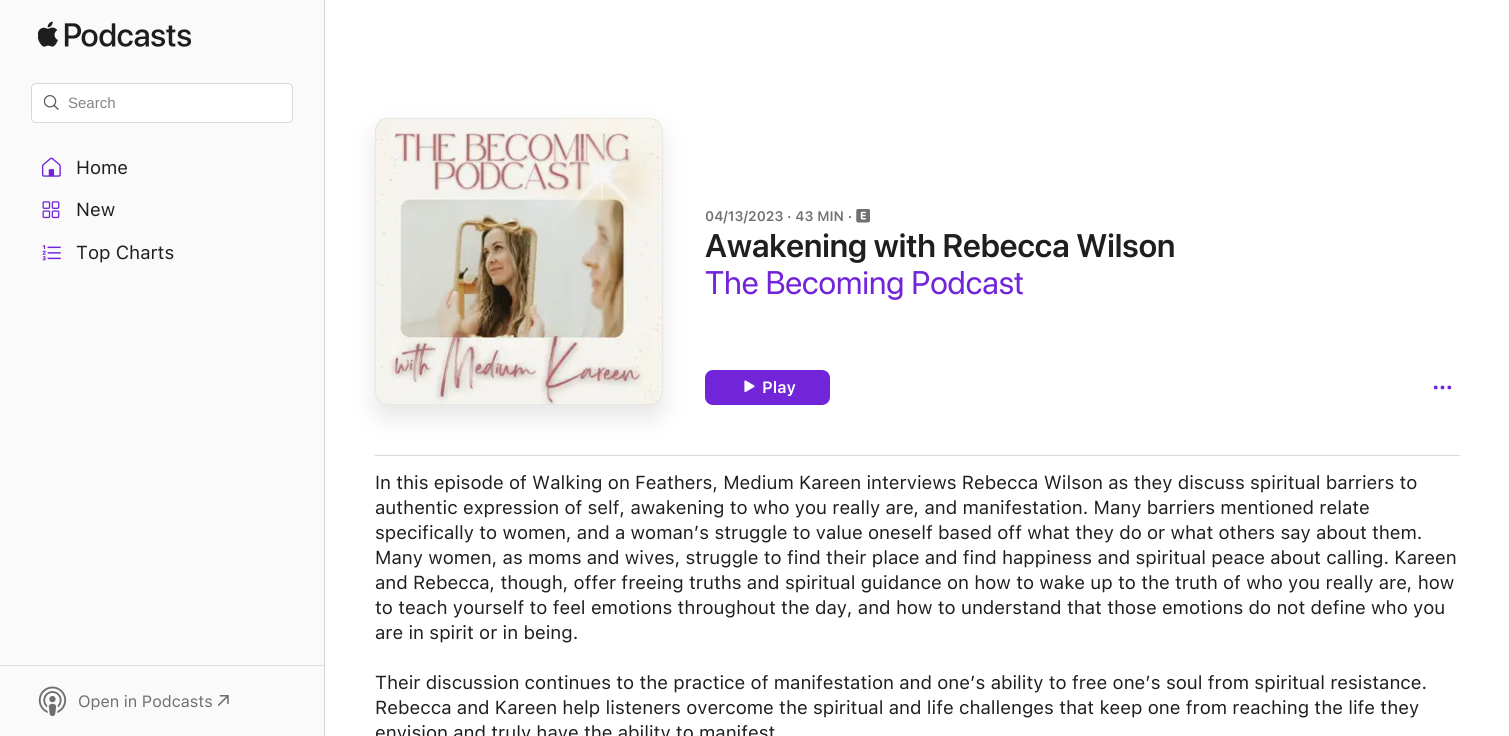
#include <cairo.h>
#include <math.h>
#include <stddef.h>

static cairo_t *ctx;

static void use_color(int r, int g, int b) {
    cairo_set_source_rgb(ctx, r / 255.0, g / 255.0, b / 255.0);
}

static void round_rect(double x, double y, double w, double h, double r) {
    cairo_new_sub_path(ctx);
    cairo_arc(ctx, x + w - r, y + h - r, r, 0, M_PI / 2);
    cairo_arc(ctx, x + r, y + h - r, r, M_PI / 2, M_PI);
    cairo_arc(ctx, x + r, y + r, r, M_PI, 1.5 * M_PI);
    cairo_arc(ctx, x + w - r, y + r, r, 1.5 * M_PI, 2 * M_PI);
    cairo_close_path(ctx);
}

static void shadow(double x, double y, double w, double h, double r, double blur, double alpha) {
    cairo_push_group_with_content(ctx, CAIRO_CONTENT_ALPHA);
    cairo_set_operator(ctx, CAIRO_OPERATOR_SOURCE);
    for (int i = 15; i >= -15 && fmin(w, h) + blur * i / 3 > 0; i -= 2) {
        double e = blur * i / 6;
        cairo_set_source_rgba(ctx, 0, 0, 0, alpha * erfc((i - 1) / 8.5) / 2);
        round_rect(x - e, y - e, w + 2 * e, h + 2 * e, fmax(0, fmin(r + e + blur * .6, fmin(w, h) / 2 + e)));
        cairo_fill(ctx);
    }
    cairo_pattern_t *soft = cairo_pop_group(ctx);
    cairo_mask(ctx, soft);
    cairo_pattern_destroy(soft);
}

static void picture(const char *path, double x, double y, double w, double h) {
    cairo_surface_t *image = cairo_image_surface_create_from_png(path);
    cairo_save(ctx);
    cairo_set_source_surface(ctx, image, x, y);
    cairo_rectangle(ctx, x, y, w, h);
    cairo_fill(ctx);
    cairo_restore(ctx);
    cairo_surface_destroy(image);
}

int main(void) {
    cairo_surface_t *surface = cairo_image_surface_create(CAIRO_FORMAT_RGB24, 1509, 736);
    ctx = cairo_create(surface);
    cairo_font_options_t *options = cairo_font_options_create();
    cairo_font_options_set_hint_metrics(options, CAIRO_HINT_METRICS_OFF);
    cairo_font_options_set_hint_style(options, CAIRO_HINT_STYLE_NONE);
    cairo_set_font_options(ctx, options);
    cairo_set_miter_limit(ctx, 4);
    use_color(255, 255, 255);
    cairo_paint(ctx);
    use_color(250, 250, 250);
    cairo_rectangle(ctx, 0, 0, 324, 736);
    cairo_fill(ctx);
    use_color(225, 225, 225);
    cairo_rectangle(ctx, 0, 665, 325, 1);
    cairo_fill(ctx);
    use_color(213, 213, 213);
    cairo_rectangle(ctx, 324, 0, 1, 736);
    cairo_fill(ctx);
    use_color(192, 192, 192);
    cairo_rectangle(ctx, 324, 665, 1, 1);
    cairo_fill(ctx);
    picture("img1.png", 38, 21, 153, 26);
    use_color(255, 255, 255);
    round_rect(31.5, 83.5, 261, 39, 4.5);
    cairo_fill_preserve(ctx);
    use_color(217, 217, 217);
    cairo_set_line_width(ctx, 1);
    cairo_stroke(ctx);
    picture("img2.png", 44, 95, 15, 15);
    cairo_select_font_face(ctx, "Liberation Sans", CAIRO_FONT_SLANT_NORMAL, CAIRO_FONT_WEIGHT_NORMAL);
    cairo_set_font_size(ctx, 15);
    use_color(133, 133, 133);
    cairo_move_to(ctx, 68, 108);
    cairo_show_text(ctx, "Search");
    picture("img3.png", 41, 157, 20, 20);
    cairo_select_font_face(ctx, "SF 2", CAIRO_FONT_SLANT_NORMAL, CAIRO_FONT_WEIGHT_NORMAL);
    cairo_set_font_size(ctx, 18.75);
    use_color(31, 31, 31);
    cairo_move_to(ctx, 76, 174);
    cairo_show_text(ctx, "Home");
    picture("img4.png", 42, 201, 18, 18);
    cairo_move_to(ctx, 76, 216);
    cairo_show_text(ctx, "New");
    picture("img5.png", 42, 245, 19, 16);
    cairo_move_to(ctx, 76, 259);
    cairo_show_text(ctx, "Top Charts");
    picture("img6.png", 38, 686, 29, 30);
    cairo_set_font_size(ctx, 16.25);
    use_color(112, 112, 112);
    cairo_move_to(ctx, 78, 707);
    cairo_show_text(ctx, "Open in Podcasts");
    picture("img7.png", 218, 695, 11, 11);
    use_color(217, 217, 217);
    cairo_rectangle(ctx, 375, 455, 1085, 1);
    cairo_fill(ctx);
    use_color(0, 0, 0);
    shadow(375, 130, 288, 288, 13, 12.5, 0.1);
    picture("img8.png", 375, 117, 288, 288);
    round_rect(375.5, 118.5, 287, 286, 12.5);
    cairo_set_source_rgba(ctx, 0.502, 0.502, 0.502, 0.1);
    cairo_stroke(ctx);
    cairo_select_font_face(ctx, "SF SemiBold", CAIRO_FONT_SLANT_NORMAL, CAIRO_FONT_WEIGHT_NORMAL);
    cairo_set_font_size(ctx, 13.75);
    use_color(112, 112, 112);
    cairo_move_to(ctx, 705, 221);
    cairo_show_text(ctx, "04/13/2023 · 43 MIN ·");
    picture("img9.png", 856, 209, 14, 14);
    cairo_select_font_face(ctx, "SF 2 SemiBold", CAIRO_FONT_SLANT_NORMAL, CAIRO_FONT_WEIGHT_NORMAL);
    cairo_set_font_size(ctx, 32.5);
    use_color(31, 31, 31);
    cairo_move_to(ctx, 705, 257);
    cairo_show_text(ctx, "Awakening with Rebecca Wilson");
    cairo_select_font_face(ctx, "SF", CAIRO_FONT_SLANT_NORMAL, CAIRO_FONT_WEIGHT_NORMAL);
    use_color(114, 36, 216);
    cairo_move_to(ctx, 705, 294);
    cairo_show_text(ctx, "The Becoming Podcast");
    round_rect(705, 370, 125, 35, 8);
    cairo_fill(ctx);
    picture("img10.png", 744, 380, 11, 12);
    cairo_select_font_face(ctx, "SF SemiBold", CAIRO_FONT_SLANT_NORMAL, CAIRO_FONT_WEIGHT_NORMAL);
    cairo_set_font_size(ctx, 16.25);
    use_color(255, 255, 255);
    cairo_move_to(ctx, 762, 393);
    cairo_show_text(ctx, "Play");
    picture("img11.png", 1433, 385, 19, 5);
    cairo_select_font_face(ctx, "SF 2", CAIRO_FONT_SLANT_NORMAL, CAIRO_FONT_WEIGHT_NORMAL);
    cairo_set_font_size(ctx, 18.75);
    use_color(31, 31, 31);
    cairo_move_to(ctx, 375, 489);
    cairo_show_text(ctx, "In this episode of Walking on Feathers, Medium Kareen interviews Rebecca Wilson as they discuss spiritual barriers to");
    cairo_move_to(ctx, 375, 514);
    cairo_show_text(ctx, "authentic expression of self, awakening to who you really are, and manifestation. Many barriers mentioned relate");
    cairo_move_to(ctx, 375, 539);
    cairo_show_text(ctx, "specifically to women, and a woman’s struggle to value oneself based off what they do or what others say about them.");
    cairo_move_to(ctx, 375, 564);
    cairo_show_text(ctx, "Many women, as moms and wives, struggle to find their place and find happiness and spiritual peace about calling. Kareen");
    cairo_move_to(ctx, 375, 589);
    cairo_show_text(ctx, "and Rebecca, though, offer freeing truths and spiritual guidance on how to wake up to the truth of who you really are, how");
    cairo_move_to(ctx, 375, 614);
    cairo_show_text(ctx, "to teach yourself to feel emotions throughout the day, and how to understand that those emotions do not define who you");
    cairo_move_to(ctx, 375, 639);
    cairo_show_text(ctx, "are in spirit or in being.");
    cairo_move_to(ctx, 375, 689);
    cairo_show_text(ctx, "Their discussion continues to the practice of manifestation and one’s ability to free one’s soul from spiritual resistance.");
    cairo_move_to(ctx, 375, 714);
    cairo_show_text(ctx, "Rebecca and Kareen help listeners overcome the spiritual and life challenges that keep one from reaching the life they");
    cairo_move_to(ctx, 375, 739);
    cairo_show_text(ctx, "envision and truly have the ability to manifest");
    cairo_surface_write_to_png(surface, "result.png");
    cairo_font_options_destroy(options);
    cairo_destroy(ctx);
    cairo_surface_destroy(surface);
    return 0;
}
